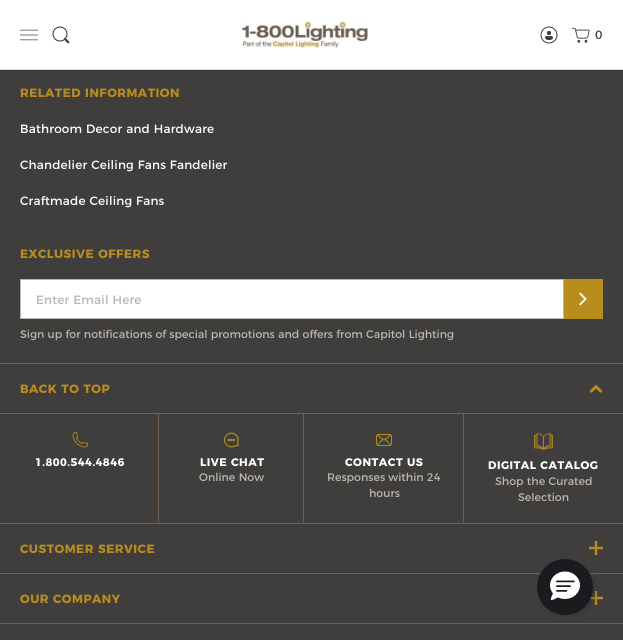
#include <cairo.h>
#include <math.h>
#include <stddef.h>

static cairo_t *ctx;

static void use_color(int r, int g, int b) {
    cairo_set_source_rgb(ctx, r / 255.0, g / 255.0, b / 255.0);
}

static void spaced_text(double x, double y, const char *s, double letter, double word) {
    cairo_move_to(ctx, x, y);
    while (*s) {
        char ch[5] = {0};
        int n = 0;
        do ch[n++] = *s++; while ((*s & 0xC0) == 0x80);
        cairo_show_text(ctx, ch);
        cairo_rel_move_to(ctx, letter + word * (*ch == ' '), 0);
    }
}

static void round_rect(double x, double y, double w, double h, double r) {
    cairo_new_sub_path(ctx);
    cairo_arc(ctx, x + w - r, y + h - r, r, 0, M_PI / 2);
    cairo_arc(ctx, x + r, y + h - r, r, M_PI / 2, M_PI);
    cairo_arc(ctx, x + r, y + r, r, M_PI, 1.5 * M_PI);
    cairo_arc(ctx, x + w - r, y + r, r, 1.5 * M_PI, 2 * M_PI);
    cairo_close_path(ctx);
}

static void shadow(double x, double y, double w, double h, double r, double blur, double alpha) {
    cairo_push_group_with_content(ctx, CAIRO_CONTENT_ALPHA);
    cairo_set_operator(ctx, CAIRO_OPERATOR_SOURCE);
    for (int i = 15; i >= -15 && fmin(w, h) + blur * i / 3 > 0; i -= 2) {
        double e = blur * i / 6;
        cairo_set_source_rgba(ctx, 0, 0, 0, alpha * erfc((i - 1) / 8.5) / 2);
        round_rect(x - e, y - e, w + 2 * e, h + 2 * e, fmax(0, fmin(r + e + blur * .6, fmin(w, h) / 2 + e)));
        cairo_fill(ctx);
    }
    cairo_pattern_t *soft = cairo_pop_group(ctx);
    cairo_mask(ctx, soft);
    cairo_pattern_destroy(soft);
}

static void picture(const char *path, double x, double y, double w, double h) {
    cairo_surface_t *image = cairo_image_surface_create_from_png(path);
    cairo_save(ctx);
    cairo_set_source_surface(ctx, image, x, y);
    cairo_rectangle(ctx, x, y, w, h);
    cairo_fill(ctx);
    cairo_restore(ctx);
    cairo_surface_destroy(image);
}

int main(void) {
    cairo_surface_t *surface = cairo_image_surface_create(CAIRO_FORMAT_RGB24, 623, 640);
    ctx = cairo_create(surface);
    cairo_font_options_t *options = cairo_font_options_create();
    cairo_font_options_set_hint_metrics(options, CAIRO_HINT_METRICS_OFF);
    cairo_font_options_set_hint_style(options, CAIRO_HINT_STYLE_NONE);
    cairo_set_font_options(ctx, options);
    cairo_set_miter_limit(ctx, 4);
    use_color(64, 62, 61);
    cairo_paint(ctx);
    use_color(255, 255, 255);
    cairo_rectangle(ctx, 0, 0, 623, 69);
    cairo_fill(ctx);
    use_color(217, 214, 210);
    cairo_rectangle(ctx, 0, 69, 623, 1);
    cairo_fill(ctx);
    picture("img1.png", 20, 29, 18, 12);
    picture("img2.png", 52, 26, 18, 18);
    picture("img3.png", 242, 21, 126, 27);
    picture("img4.png", 540, 26, 18, 18);
    picture("img5.png", 572, 27, 18, 16);
    cairo_select_font_face(ctx, "Montserrat", CAIRO_FONT_SLANT_NORMAL, CAIRO_FONT_WEIGHT_NORMAL);
    cairo_set_font_size(ctx, 12);
    use_color(64, 62, 61);
    cairo_move_to(ctx, 595, 39);
    cairo_show_text(ctx, "0");
    cairo_select_font_face(ctx, "Montserrat", CAIRO_FONT_SLANT_NORMAL, CAIRO_FONT_WEIGHT_BOLD);
    use_color(184, 140, 29);
    spaced_text(20, 97, "RELATED INFORMATION", 0.5, 0);
    cairo_select_font_face(ctx, "Montserrat", CAIRO_FONT_SLANT_NORMAL, CAIRO_FONT_WEIGHT_NORMAL);
    use_color(255, 255, 255);
    spaced_text(20, 133, "Bathroom Decor and Hardware", 0.2, 0);
    spaced_text(20, 169, "Chandelier Ceiling Fans Fandelier", 0.2, 0);
    spaced_text(20, 205, "Craftmade Ceiling Fans", 0.2, 0);
    use_color(111, 95, 83);
    cairo_rectangle(ctx, 0, 363, 623, 1);
    cairo_fill(ctx);
    cairo_select_font_face(ctx, "Montserrat", CAIRO_FONT_SLANT_NORMAL, CAIRO_FONT_WEIGHT_BOLD);
    use_color(184, 140, 29);
    spaced_text(20, 258, "EXCLUSIVE OFFERS", 0.5, 0);
    use_color(255, 255, 255);
    cairo_rectangle(ctx, 20.5, 279.5, 543, 39);
    cairo_fill_preserve(ctx);
    use_color(186, 181, 174);
    cairo_set_line_width(ctx, 1);
    cairo_stroke(ctx);
    cairo_select_font_face(ctx, "Montserrat", CAIRO_FONT_SLANT_NORMAL, CAIRO_FONT_WEIGHT_NORMAL);
    spaced_text(36, 304, "Enter Email Here", 0.2, 0);
    use_color(184, 140, 29);
    cairo_rectangle(ctx, 564, 279, 39, 40);
    cairo_fill(ctx);
    picture("img6.png", 579, 292, 8, 14);
    cairo_set_font_size(ctx, 11);
    use_color(186, 181, 174);
    cairo_move_to(ctx, 20, 338);
    cairo_show_text(ctx, "Sign up for notifications of special promotions and offers from Capitol Lighting");
    use_color(111, 95, 83);
    cairo_rectangle(ctx, 0, 413, 623, 1);
    cairo_fill(ctx);
    cairo_select_font_face(ctx, "Montserrat", CAIRO_FONT_SLANT_NORMAL, CAIRO_FONT_WEIGHT_BOLD);
    cairo_set_font_size(ctx, 12);
    use_color(184, 140, 29);
    spaced_text(20, 393, "BACK TO TOP", 0.5, 0);
    picture("img7.png", 589, 384, 14, 9);
    use_color(111, 95, 83);
    cairo_rectangle(ctx, 0, 523, 623, 1);
    cairo_fill(ctx);
    picture("img8.png", 72, 432, 16, 16);
    cairo_set_font_size(ctx, 11);
    use_color(255, 255, 255);
    spaced_text(35, 466, "1.800.544.4846", 0.5, 0);
    use_color(111, 95, 83);
    cairo_rectangle(ctx, 158, 414, 1, 109);
    cairo_fill(ctx);
    picture("img9.png", 224, 432, 15, 16);
    cairo_rectangle(ctx, 303, 414, 1, 109);
    cairo_fill(ctx);
    use_color(255, 255, 255);
    spaced_text(200, 466, "LIVE CHAT", 0.5, 0);
    cairo_select_font_face(ctx, "Montserrat", CAIRO_FONT_SLANT_NORMAL, CAIRO_FONT_WEIGHT_NORMAL);
    use_color(186, 181, 174);
    cairo_move_to(ctx, 199, 481);
    cairo_show_text(ctx, "Online Now");
    picture("img10.png", 376, 434, 16, 12);
    cairo_select_font_face(ctx, "Montserrat", CAIRO_FONT_SLANT_NORMAL, CAIRO_FONT_WEIGHT_BOLD);
    use_color(255, 255, 255);
    spaced_text(345, 466, "CONTACT US", 0.5, 0);
    cairo_select_font_face(ctx, "Montserrat", CAIRO_FONT_SLANT_NORMAL, CAIRO_FONT_WEIGHT_NORMAL);
    use_color(186, 181, 174);
    cairo_move_to(ctx, 327, 481);
    cairo_show_text(ctx, "Responses within 24");
    cairo_move_to(ctx, 369, 497);
    cairo_show_text(ctx, "hours");
    use_color(111, 95, 83);
    cairo_rectangle(ctx, 463, 414, 1, 109);
    cairo_fill(ctx);
    picture("img11.png", 534, 432, 19, 19);
    cairo_select_font_face(ctx, "Montserrat", CAIRO_FONT_SLANT_NORMAL, CAIRO_FONT_WEIGHT_BOLD);
    use_color(255, 255, 255);
    spaced_text(488, 469, "DIGITAL CATALOG", 0.5, 0);
    cairo_select_font_face(ctx, "Montserrat", CAIRO_FONT_SLANT_NORMAL, CAIRO_FONT_WEIGHT_NORMAL);
    use_color(186, 181, 174);
    cairo_move_to(ctx, 495, 485);
    cairo_show_text(ctx, "Shop the Curated");
    cairo_move_to(ctx, 518, 501);
    cairo_show_text(ctx, "Selection");
    use_color(111, 95, 83);
    cairo_rectangle(ctx, 0, 573, 623, 1);
    cairo_fill(ctx);
    cairo_select_font_face(ctx, "Montserrat", CAIRO_FONT_SLANT_NORMAL, CAIRO_FONT_WEIGHT_BOLD);
    cairo_set_font_size(ctx, 12);
    use_color(184, 140, 29);
    spaced_text(20, 553, "CUSTOMER SERVICE", 0.5, 0);
    picture("img12.png", 589, 541, 14, 14);
    use_color(111, 95, 83);
    cairo_rectangle(ctx, 0, 623, 623, 1);
    cairo_fill(ctx);
    use_color(184, 140, 29);
    spaced_text(20, 603, "OUR COMPANY", 0.5, 0);
    picture("img12.png", 589, 591, 14, 14);
    use_color(45, 45, 45);
    shadow(539, 561, 56, 56, 28, 2.5, 0.5);
    use_color(26, 27, 30);
    cairo_arc(ctx, 565, 587, 28, 0, 2 * M_PI);
    cairo_fill(ctx);
    picture("img13.png", 550, 571, 30, 29);
    cairo_surface_write_to_png(surface, "result.png");
    cairo_font_options_destroy(options);
    cairo_destroy(ctx);
    cairo_surface_destroy(surface);
    return 0;
}
